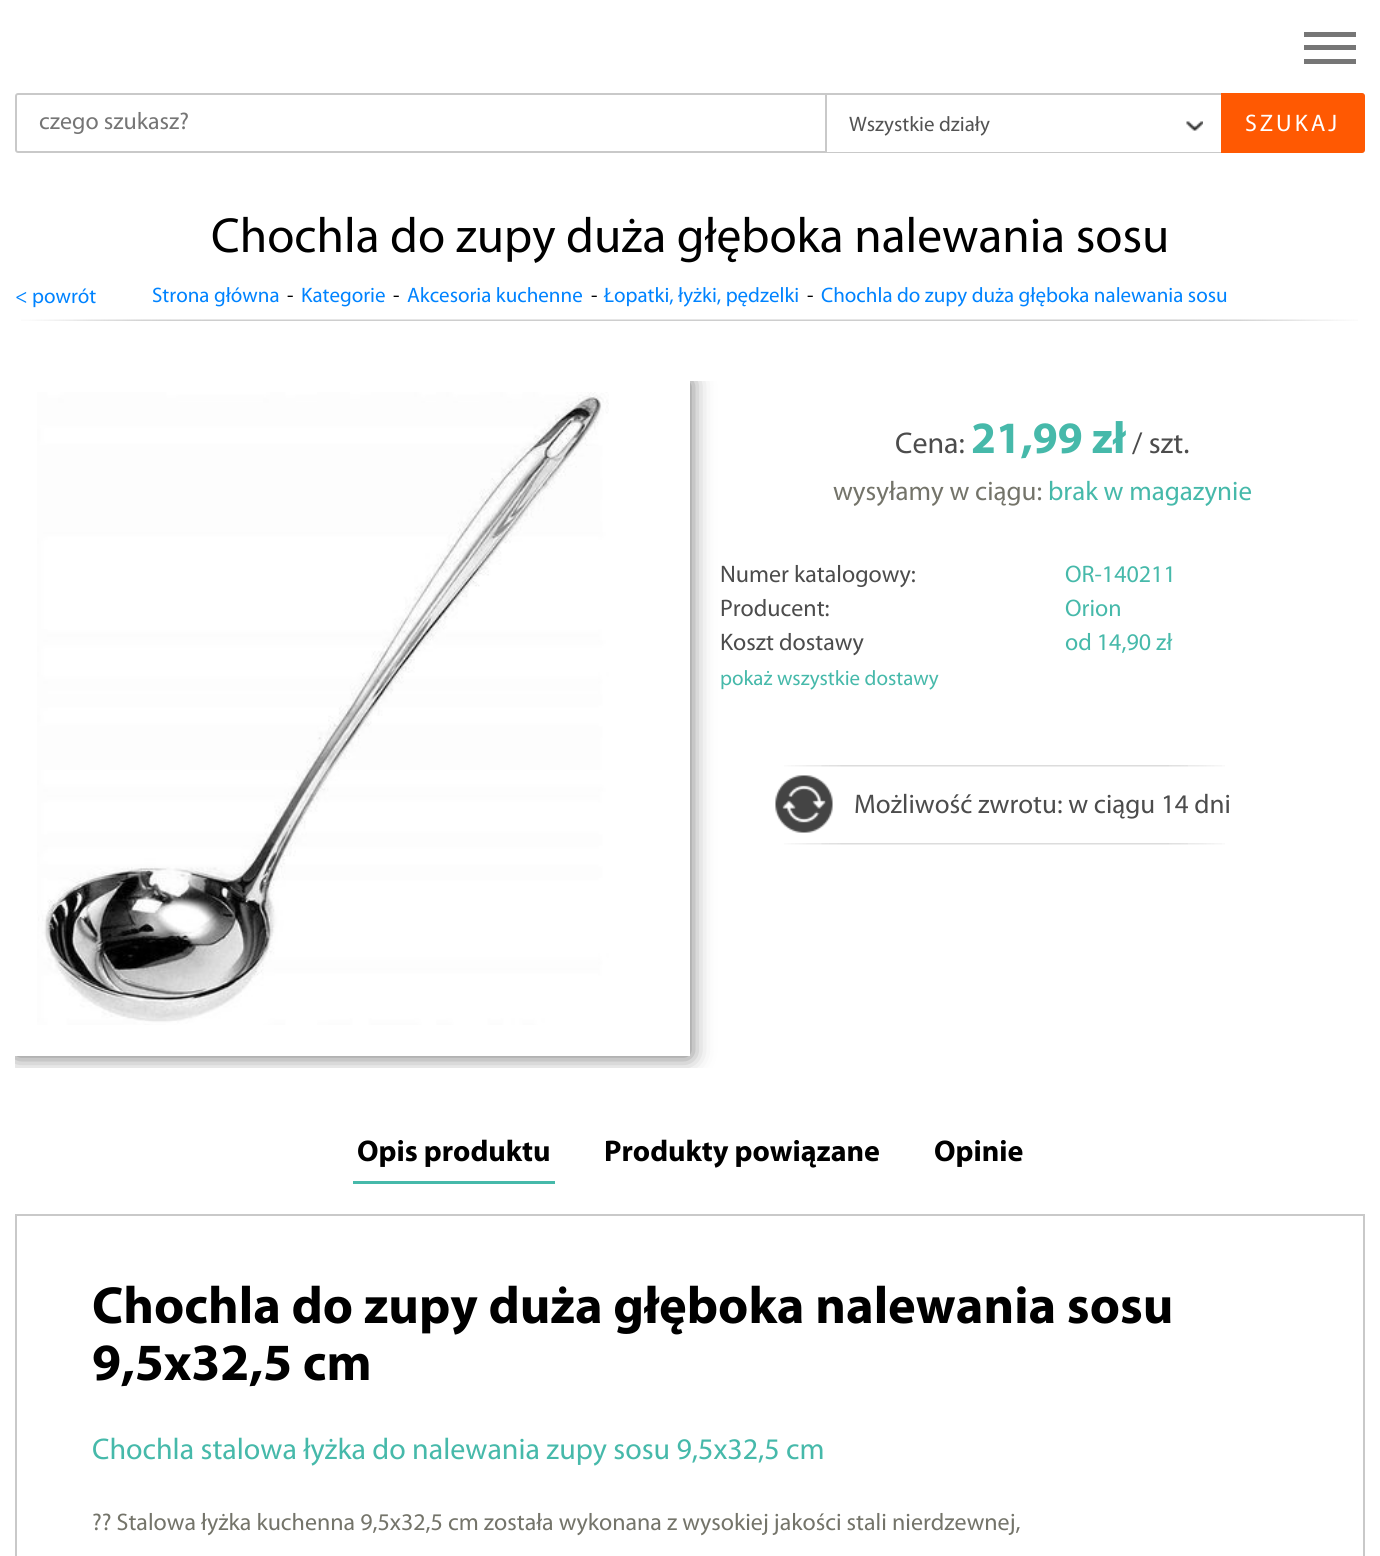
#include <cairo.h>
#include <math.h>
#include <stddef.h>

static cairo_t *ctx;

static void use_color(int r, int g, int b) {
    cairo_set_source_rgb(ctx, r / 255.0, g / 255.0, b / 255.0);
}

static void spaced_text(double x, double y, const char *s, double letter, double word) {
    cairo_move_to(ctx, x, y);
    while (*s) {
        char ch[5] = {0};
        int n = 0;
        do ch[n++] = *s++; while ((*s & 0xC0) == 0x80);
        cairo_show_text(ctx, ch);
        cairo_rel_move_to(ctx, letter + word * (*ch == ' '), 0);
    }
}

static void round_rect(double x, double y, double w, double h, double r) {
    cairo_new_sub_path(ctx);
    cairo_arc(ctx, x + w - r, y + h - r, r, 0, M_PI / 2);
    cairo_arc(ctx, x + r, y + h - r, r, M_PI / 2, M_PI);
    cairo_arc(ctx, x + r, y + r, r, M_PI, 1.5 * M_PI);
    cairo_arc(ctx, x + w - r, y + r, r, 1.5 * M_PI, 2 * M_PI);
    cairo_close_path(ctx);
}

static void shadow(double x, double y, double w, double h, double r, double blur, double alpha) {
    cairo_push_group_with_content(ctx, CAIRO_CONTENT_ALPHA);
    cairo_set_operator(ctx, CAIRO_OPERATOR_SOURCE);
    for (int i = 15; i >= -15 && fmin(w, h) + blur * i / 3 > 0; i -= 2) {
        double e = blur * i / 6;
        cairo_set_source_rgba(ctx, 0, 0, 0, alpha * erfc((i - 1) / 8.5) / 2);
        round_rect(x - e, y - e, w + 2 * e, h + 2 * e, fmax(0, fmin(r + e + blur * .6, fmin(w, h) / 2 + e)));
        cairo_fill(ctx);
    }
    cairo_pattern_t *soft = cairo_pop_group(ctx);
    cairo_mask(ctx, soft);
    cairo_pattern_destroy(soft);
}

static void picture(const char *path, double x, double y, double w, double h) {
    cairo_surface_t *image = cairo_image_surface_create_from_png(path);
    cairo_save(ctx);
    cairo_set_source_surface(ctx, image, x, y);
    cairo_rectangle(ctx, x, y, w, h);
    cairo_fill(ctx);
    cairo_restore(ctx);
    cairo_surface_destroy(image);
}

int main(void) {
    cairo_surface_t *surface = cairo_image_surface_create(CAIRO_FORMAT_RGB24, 1380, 1556);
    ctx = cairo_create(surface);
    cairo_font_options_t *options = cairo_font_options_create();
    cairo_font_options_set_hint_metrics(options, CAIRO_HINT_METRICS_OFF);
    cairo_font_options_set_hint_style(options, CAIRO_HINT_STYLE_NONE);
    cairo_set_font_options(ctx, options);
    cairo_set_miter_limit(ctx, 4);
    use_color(255, 255, 255);
    cairo_paint(ctx);
    use_color(118, 118, 118);
    cairo_rectangle(ctx, 1304, 32, 52, 5);
    cairo_fill(ctx);
    cairo_rectangle(ctx, 1304, 45, 52, 5);
    cairo_fill(ctx);
    cairo_rectangle(ctx, 1304, 59, 52, 5);
    cairo_fill(ctx);
    round_rect(16, 94, 1348, 58, 2);
    use_color(201, 201, 201);
    cairo_stroke(ctx);
    cairo_select_font_face(ctx, "Myriad", CAIRO_FONT_SLANT_NORMAL, CAIRO_FONT_WEIGHT_NORMAL);
    cairo_set_font_size(ctx, 24);
    use_color(117, 117, 117);
    cairo_move_to(ctx, 39, 129);
    cairo_show_text(ctx, "czego szukasz?");
    use_color(201, 201, 201);
    cairo_rectangle(ctx, 825, 95, 2, 57);
    cairo_fill(ctx);
    use_color(255, 255, 255);
    cairo_rectangle(ctx, 827, 151, 394, 1);
    cairo_fill(ctx);
    cairo_set_font_size(ctx, 21);
    use_color(83, 83, 83);
    cairo_move_to(ctx, 849, 131);
    cairo_show_text(ctx, "Wszystkie działy");
    picture("img1.png", 1186, 121, 17, 10);
    use_color(255, 89, 2);
    cairo_new_path(ctx);
    cairo_move_to(ctx, 1221, 93);
    cairo_line_to(ctx, 1362, 93);
    cairo_curve_to(ctx, 1363.5, 93, 1365, 94.5, 1365, 96);
    cairo_line_to(ctx, 1365, 150);
    cairo_curve_to(ctx, 1365, 151.5, 1363.5, 153, 1362, 153);
    cairo_line_to(ctx, 1221, 153);
    cairo_close_path(ctx);
    cairo_fill(ctx);
    cairo_set_font_size(ctx, 24);
    use_color(255, 255, 255);
    spaced_text(1245, 131, "SZUKAJ", 3, 0);
    picture("img2.png", 21, 319, 1337, 2);
    cairo_set_font_size(ctx, 49.5);
    use_color(0, 0, 0);
    cairo_move_to(ctx, 211, 252);
    cairo_show_text(ctx, "Chochla do zupy duża głęboka nalewania sosu");
    cairo_set_font_size(ctx, 21);
    use_color(0, 131, 255);
    cairo_move_to(ctx, 15, 303);
    cairo_show_text(ctx, "< powrót");
    cairo_move_to(ctx, 152, 302);
    cairo_show_text(ctx, "Strona główna");
    use_color(0, 0, 0);
    cairo_move_to(ctx, 287, 302);
    cairo_show_text(ctx, "-");
    use_color(0, 131, 255);
    cairo_move_to(ctx, 301, 302);
    cairo_show_text(ctx, "Kategorie");
    use_color(0, 0, 0);
    cairo_move_to(ctx, 393, 302);
    cairo_show_text(ctx, "-");
    use_color(0, 131, 255);
    cairo_move_to(ctx, 407, 302);
    cairo_show_text(ctx, "Akcesoria kuchenne");
    use_color(0, 0, 0);
    cairo_move_to(ctx, 591, 302);
    cairo_show_text(ctx, "-");
    use_color(0, 131, 255);
    cairo_move_to(ctx, 604, 302);
    cairo_show_text(ctx, "Łopatki, łyżki, pędzelki");
    use_color(0, 0, 0);
    cairo_move_to(ctx, 807, 302);
    cairo_show_text(ctx, "-");
    use_color(0, 131, 255);
    cairo_move_to(ctx, 821, 302);
    cairo_show_text(ctx, "Chochla do zupy duża głęboka nalewania sosu");
    cairo_save(ctx);
    cairo_rectangle(ctx, 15, 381, 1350, 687);
    cairo_clip(ctx);
    cairo_set_fill_rule(ctx, CAIRO_FILL_RULE_EVEN_ODD);
    cairo_new_path(ctx);
    cairo_move_to(ctx, 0, 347);
    cairo_line_to(ctx, 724, 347);
    cairo_line_to(ctx, 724, 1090);
    cairo_line_to(ctx, 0, 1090);
    cairo_close_path(ctx);
    cairo_move_to(ctx, 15, 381);
    cairo_line_to(ctx, 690, 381);
    cairo_line_to(ctx, 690, 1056);
    cairo_line_to(ctx, 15, 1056);
    cairo_close_path(ctx);
    cairo_clip(ctx);
    use_color(102, 102, 102);
    shadow(15, 381, 675, 675, 0, 11, 1);
    cairo_restore(ctx);
    picture("img3.png", 37, 392, 572, 633);
    cairo_set_font_size(ctx, 30);
    use_color(76, 76, 76);
    cairo_move_to(ctx, 895, 453);
    cairo_show_text(ctx, "Cena:");
    cairo_select_font_face(ctx, "Myriad", CAIRO_FONT_SLANT_NORMAL, CAIRO_FONT_WEIGHT_BOLD);
    cairo_set_font_size(ctx, 45);
    use_color(70, 185, 170);
    cairo_move_to(ctx, 971, 453);
    cairo_show_text(ctx, "21,99 zł");
    cairo_select_font_face(ctx, "Myriad", CAIRO_FONT_SLANT_NORMAL, CAIRO_FONT_WEIGHT_NORMAL);
    cairo_set_font_size(ctx, 30);
    use_color(76, 76, 76);
    cairo_move_to(ctx, 1132, 453);
    cairo_show_text(ctx, "/ szt.");
    cairo_set_font_size(ctx, 27);
    use_color(116, 116, 106);
    cairo_move_to(ctx, 833, 500);
    cairo_show_text(ctx, "wysyłamy w ciągu:");
    use_color(70, 185, 170);
    cairo_move_to(ctx, 1048, 500);
    cairo_show_text(ctx, "brak w magazynie");
    cairo_set_font_size(ctx, 24);
    use_color(76, 76, 76);
    cairo_move_to(ctx, 720, 582);
    cairo_show_text(ctx, "Numer katalogowy:");
    use_color(70, 185, 170);
    cairo_move_to(ctx, 1065, 582);
    cairo_show_text(ctx, "OR-140211");
    use_color(76, 76, 76);
    cairo_move_to(ctx, 720, 616);
    cairo_show_text(ctx, "Producent:");
    use_color(70, 185, 170);
    cairo_move_to(ctx, 1065, 616);
    cairo_show_text(ctx, "Orion");
    use_color(76, 76, 76);
    cairo_move_to(ctx, 720, 650);
    cairo_show_text(ctx, "Koszt dostawy");
    cairo_set_font_size(ctx, 21);
    use_color(70, 185, 170);
    cairo_move_to(ctx, 720, 685);
    cairo_show_text(ctx, "pokaż wszystkie dostawy");
    cairo_set_font_size(ctx, 24);
    cairo_move_to(ctx, 1065, 650);
    cairo_show_text(ctx, "od 14,90 zł");
    picture("img4.png", 784, 765, 441, 2);
    picture("img4.png", 784, 843, 441, 2);
    picture("img5.png", 775, 775, 58, 58);
    cairo_set_font_size(ctx, 27);
    use_color(76, 76, 76);
    cairo_move_to(ctx, 854, 813);
    cairo_show_text(ctx, "Możliwość zwrotu: w ciągu 14 dni");
    use_color(70, 185, 170);
    cairo_rectangle(ctx, 353, 1181, 202, 3);
    cairo_fill(ctx);
    cairo_select_font_face(ctx, "Myriad", CAIRO_FONT_SLANT_NORMAL, CAIRO_FONT_WEIGHT_BOLD);
    cairo_set_font_size(ctx, 30);
    use_color(0, 0, 0);
    cairo_move_to(ctx, 357, 1161);
    cairo_show_text(ctx, "Opis produktu");
    cairo_move_to(ctx, 604, 1161);
    cairo_show_text(ctx, "Produkty powiązane");
    cairo_move_to(ctx, 934, 1161);
    cairo_show_text(ctx, "Opinie");
    cairo_rectangle(ctx, 16, 1215, 1348, 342);
    use_color(201, 201, 201);
    cairo_stroke(ctx);
    cairo_set_font_size(ctx, 52.5);
    use_color(0, 0, 0);
    cairo_move_to(ctx, 92, 1323);
    cairo_show_text(ctx, "Chochla do zupy duża głęboka nalewania sosu");
    cairo_move_to(ctx, 92, 1380);
    cairo_show_text(ctx, "9,5x32,5 cm");
    cairo_select_font_face(ctx, "Myriad", CAIRO_FONT_SLANT_NORMAL, CAIRO_FONT_WEIGHT_NORMAL);
    cairo_set_font_size(ctx, 30);
    use_color(70, 185, 170);
    cairo_move_to(ctx, 92, 1459);
    cairo_show_text(ctx, "Chochla stalowa łyżka do nalewania zupy sosu 9,5x32,5 cm");
    cairo_set_font_size(ctx, 24);
    use_color(116, 116, 106);
    cairo_move_to(ctx, 92, 1530);
    cairo_show_text(ctx, "?\077 Stalowa łyżka kuchenna 9,5x32,5 cm została wykonana z wysokiej jakości stali nierdzewnej,");
    cairo_surface_write_to_png(surface, "result.png");
    cairo_font_options_destroy(options);
    cairo_destroy(ctx);
    cairo_surface_destroy(surface);
    return 0;
}
